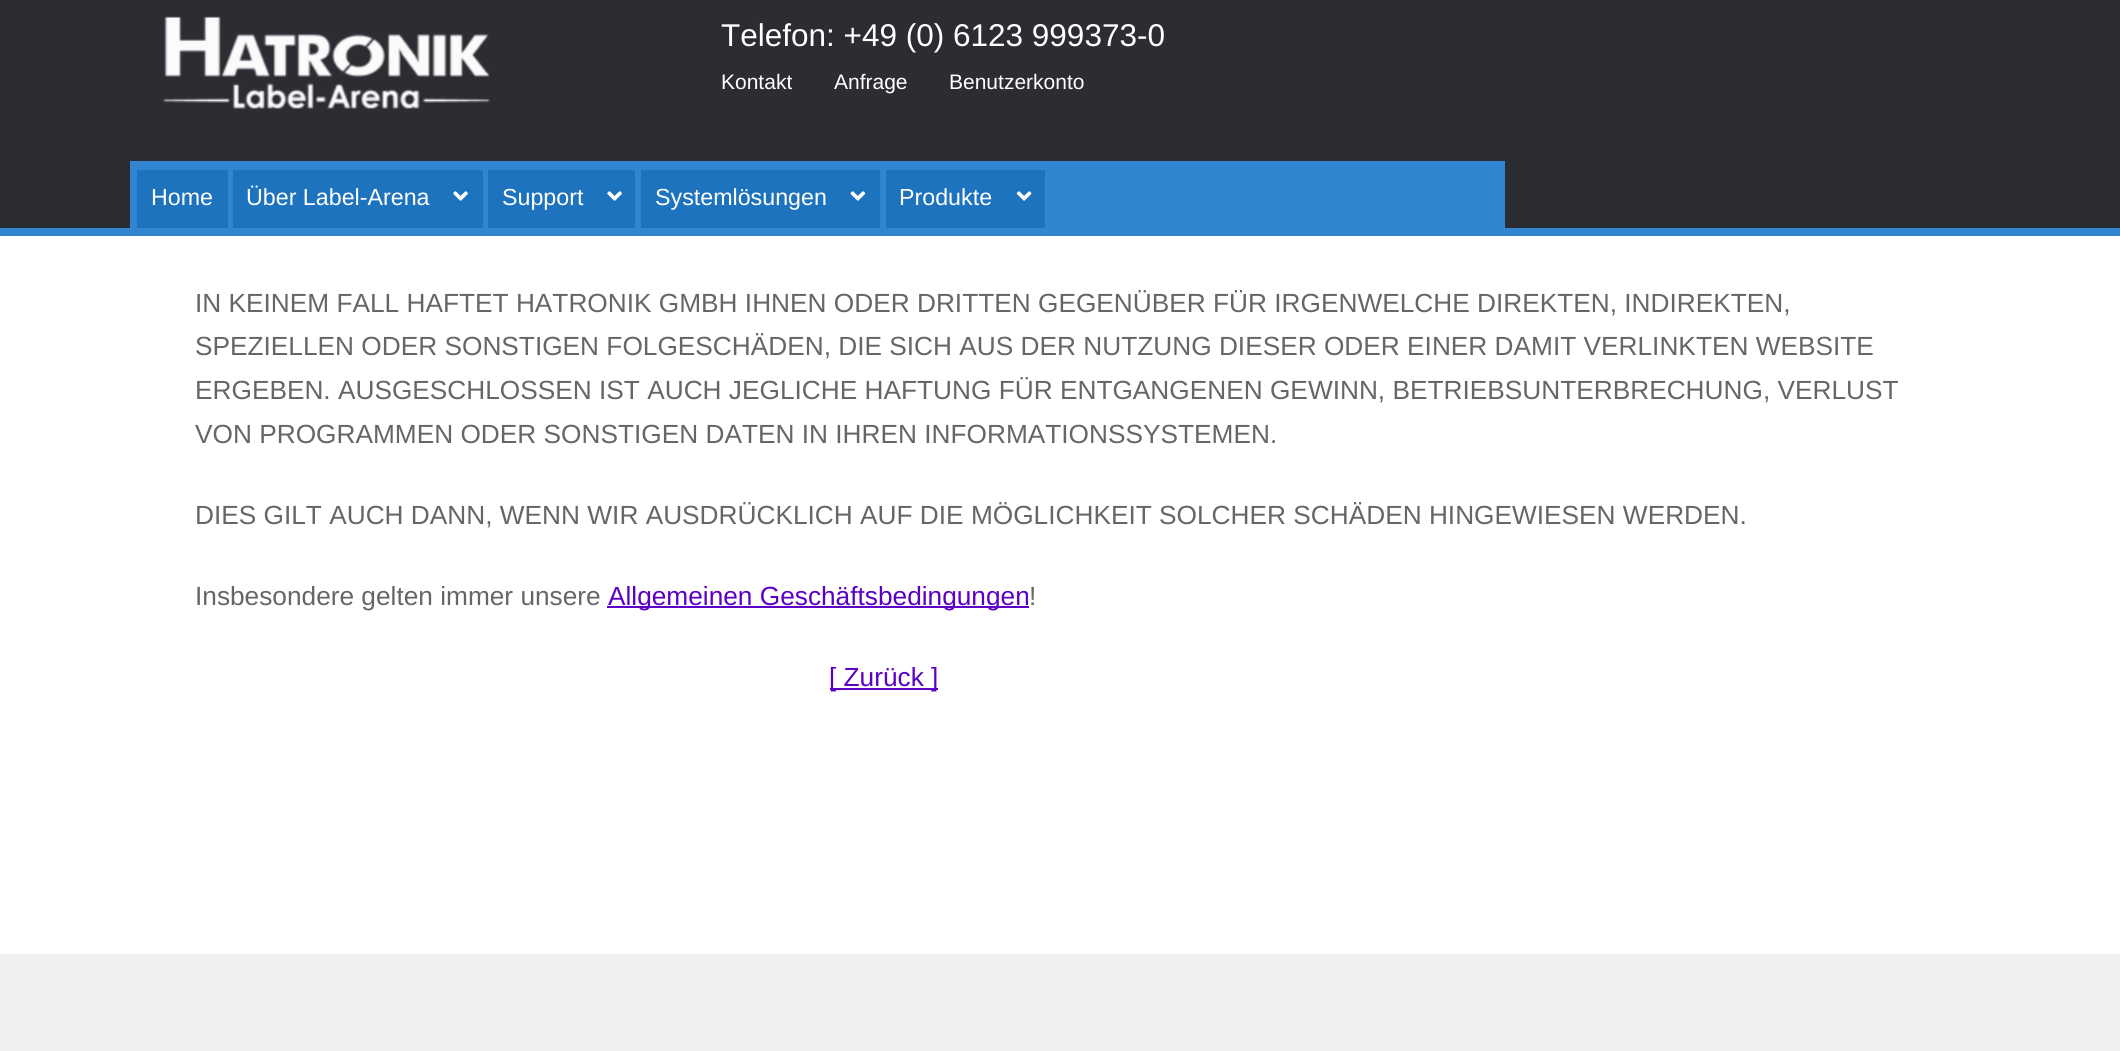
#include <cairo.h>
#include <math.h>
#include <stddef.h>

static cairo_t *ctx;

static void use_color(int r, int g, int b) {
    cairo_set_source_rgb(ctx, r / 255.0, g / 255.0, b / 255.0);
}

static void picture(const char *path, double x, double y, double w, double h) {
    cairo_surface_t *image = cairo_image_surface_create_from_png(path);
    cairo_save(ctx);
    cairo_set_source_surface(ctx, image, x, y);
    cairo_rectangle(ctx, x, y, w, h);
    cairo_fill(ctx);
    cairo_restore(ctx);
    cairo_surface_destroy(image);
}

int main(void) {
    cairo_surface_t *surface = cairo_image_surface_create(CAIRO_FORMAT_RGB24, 2120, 1051);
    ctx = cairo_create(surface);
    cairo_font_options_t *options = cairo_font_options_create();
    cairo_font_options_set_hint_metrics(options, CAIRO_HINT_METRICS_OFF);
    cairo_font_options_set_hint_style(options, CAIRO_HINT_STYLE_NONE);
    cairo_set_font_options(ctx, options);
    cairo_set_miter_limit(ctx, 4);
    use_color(255, 255, 255);
    cairo_paint(ctx);
    use_color(44, 45, 51);
    cairo_rectangle(ctx, 0, 0, 2120, 228);
    cairo_fill(ctx);
    use_color(49, 133, 209);
    cairo_rectangle(ctx, 0, 228, 2120, 8);
    cairo_fill(ctx);
    picture("img1.png", 163, 16, 327, 93);
    cairo_select_font_face(ctx, "Liberation Sans", CAIRO_FONT_SLANT_NORMAL, CAIRO_FONT_WEIGHT_NORMAL);
    cairo_set_font_size(ctx, 31.5);
    use_color(255, 255, 255);
    cairo_move_to(ctx, 721, 46);
    cairo_show_text(ctx, "Telefon: +49 (0) 6123 999373-0");
    cairo_set_font_size(ctx, 21);
    cairo_move_to(ctx, 721, 89);
    cairo_show_text(ctx, "Kontakt");
    cairo_move_to(ctx, 834, 89);
    cairo_show_text(ctx, "Anfrage");
    cairo_move_to(ctx, 949, 89);
    cairo_show_text(ctx, "Benutzerkonto");
    use_color(49, 133, 209);
    cairo_rectangle(ctx, 130, 161, 1375, 67);
    cairo_fill(ctx);
    use_color(30, 115, 190);
    cairo_rectangle(ctx, 137, 170, 91, 58);
    cairo_fill(ctx);
    cairo_set_font_size(ctx, 23.25);
    use_color(255, 255, 255);
    cairo_move_to(ctx, 151, 205);
    cairo_show_text(ctx, "Home");
    use_color(30, 115, 190);
    cairo_rectangle(ctx, 233, 170, 250, 58);
    cairo_fill(ctx);
    use_color(255, 255, 255);
    cairo_move_to(ctx, 246, 205);
    cairo_show_text(ctx, "Über Label-Arena");
    picture("img2.png", 453, 191, 15, 10);
    use_color(30, 115, 190);
    cairo_rectangle(ctx, 488, 170, 147, 58);
    cairo_fill(ctx);
    use_color(255, 255, 255);
    cairo_move_to(ctx, 502, 205);
    cairo_show_text(ctx, "Support");
    picture("img2.png", 607, 191, 15, 10);
    use_color(30, 115, 190);
    cairo_rectangle(ctx, 641, 170, 239, 58);
    cairo_fill(ctx);
    use_color(255, 255, 255);
    cairo_move_to(ctx, 655, 205);
    cairo_show_text(ctx, "Systemlösungen");
    picture("img3.png", 850, 191, 16, 10);
    use_color(30, 115, 190);
    cairo_rectangle(ctx, 886, 170, 159, 58);
    cairo_fill(ctx);
    use_color(255, 255, 255);
    cairo_move_to(ctx, 899, 205);
    cairo_show_text(ctx, "Produkte");
    picture("img4.png", 1016, 191, 16, 10);
    cairo_set_font_size(ctx, 26.25);
    use_color(102, 102, 102);
    cairo_move_to(ctx, 195, 312);
    cairo_show_text(ctx, "IN KEINEM FALL HAFTET HATRONIK GMBH IHNEN ODER DRITTEN GEGENÜBER FÜR IRGENWELCHE DIREKTEN, INDIREKTEN,");
    cairo_move_to(ctx, 195, 355);
    cairo_show_text(ctx, "SPEZIELLEN ODER SONSTIGEN FOLGESCHÄDEN, DIE SICH AUS DER NUTZUNG DIESER ODER EINER DAMIT VERLINKTEN WEBSITE");
    cairo_move_to(ctx, 195, 399);
    cairo_show_text(ctx, "ERGEBEN. AUSGESCHLOSSEN IST AUCH JEGLICHE HAFTUNG FÜR ENTGANGENEN GEWINN, BETRIEBSUNTERBRECHUNG, VERLUST");
    cairo_move_to(ctx, 195, 443);
    cairo_show_text(ctx, "VON PROGRAMMEN ODER SONSTIGEN DATEN IN IHREN INFORMATIONSSYSTEMEN.");
    cairo_move_to(ctx, 195, 524);
    cairo_show_text(ctx, "DIES GILT AUCH DANN, WENN WIR AUSDRÜCKLICH AUF DIE MÖGLICHKEIT SOLCHER SCHÄDEN HINGEWIESEN WERDEN.");
    cairo_move_to(ctx, 195, 605);
    cairo_show_text(ctx, "Insbesondere gelten immer unsere");
    use_color(91, 0, 196);
    cairo_rectangle(ctx, 607, 606, 422, 2);
    cairo_fill(ctx);
    cairo_move_to(ctx, 608, 605);
    cairo_show_text(ctx, "Allgemeinen Geschäftsbedingungen");
    use_color(102, 102, 102);
    cairo_move_to(ctx, 1029, 605);
    cairo_show_text(ctx, "!");
    use_color(91, 0, 196);
    cairo_rectangle(ctx, 830, 688, 108, 2);
    cairo_fill(ctx);
    cairo_move_to(ctx, 829, 686);
    cairo_show_text(ctx, "[ Zurück ]");
    use_color(240, 240, 240);
    cairo_rectangle(ctx, 0, 954, 2120, 97);
    cairo_fill(ctx);
    cairo_surface_write_to_png(surface, "result.png");
    cairo_font_options_destroy(options);
    cairo_destroy(ctx);
    cairo_surface_destroy(surface);
    return 0;
}
